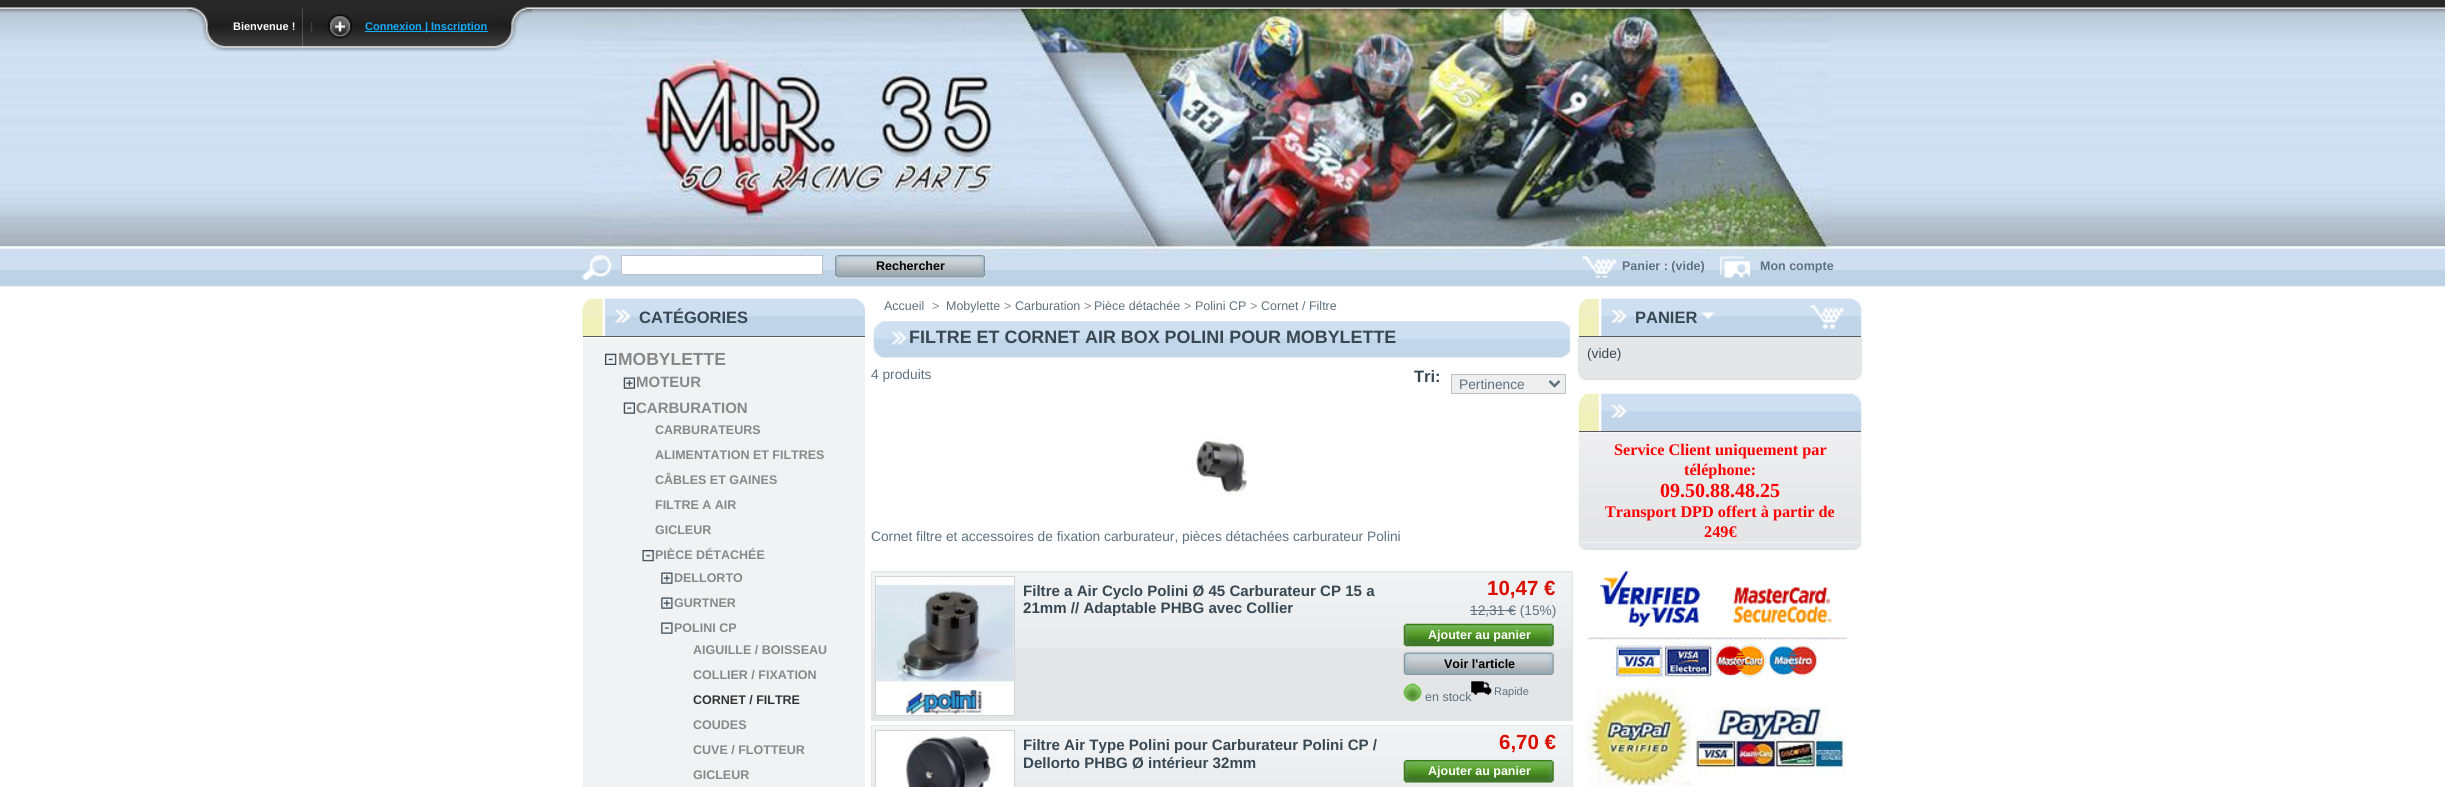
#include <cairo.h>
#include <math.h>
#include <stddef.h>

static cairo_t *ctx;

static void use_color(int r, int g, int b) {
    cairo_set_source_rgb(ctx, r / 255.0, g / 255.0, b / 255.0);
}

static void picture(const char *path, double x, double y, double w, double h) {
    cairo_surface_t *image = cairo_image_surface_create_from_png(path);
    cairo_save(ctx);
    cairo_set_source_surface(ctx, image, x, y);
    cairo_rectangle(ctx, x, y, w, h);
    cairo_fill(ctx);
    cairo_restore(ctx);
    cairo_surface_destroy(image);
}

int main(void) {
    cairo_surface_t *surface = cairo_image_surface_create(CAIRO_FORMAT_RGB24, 2445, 787);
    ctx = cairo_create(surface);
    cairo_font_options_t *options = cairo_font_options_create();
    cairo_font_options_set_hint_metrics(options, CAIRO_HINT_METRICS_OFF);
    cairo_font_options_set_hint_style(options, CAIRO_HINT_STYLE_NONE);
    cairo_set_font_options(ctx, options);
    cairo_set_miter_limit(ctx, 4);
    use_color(255, 255, 255);
    cairo_paint(ctx);
    picture("img1.png", 0, 8, 2445, 279);
    picture("img9.png", 582, 8, 1248, 253);
    picture("img2.png", 0, 0, 2445, 13);
    picture("img3.png", 187, 7, 38, 45);
    picture("img4.png", 225, 7, 78, 45);
    cairo_select_font_face(ctx, "Liberation Sans", CAIRO_FONT_SLANT_NORMAL, CAIRO_FONT_WEIGHT_BOLD);
    cairo_set_font_size(ctx, 11);
    use_color(255, 255, 255);
    cairo_move_to(ctx, 233, 30);
    cairo_show_text(ctx, "Bienvenue !");
    picture("img5.png", 302, 7, 18, 45);
    use_color(65, 65, 65);
    cairo_move_to(ctx, 310, 30);
    cairo_show_text(ctx, "|");
    picture("img6.png", 320, 7, 175, 45);
    picture("img7.png", 327, 14, 26, 25);
    use_color(21, 173, 255);
    cairo_rectangle(ctx, 365, 31, 123, 1);
    cairo_fill(ctx);
    cairo_move_to(ctx, 365, 30);
    cairo_show_text(ctx, "Connexion | Inscription");
    picture("img8.png", 495, 7, 38, 45);
    picture("img10.png", 582, 255, 30, 25);
    use_color(255, 255, 255);
    cairo_rectangle(ctx, 621.5, 255.5, 201, 19);
    cairo_fill_preserve(ctx);
    use_color(189, 194, 201);
    cairo_set_line_width(ctx, 1);
    cairo_stroke(ctx);
    use_color(239, 239, 239);
    cairo_rectangle(ctx, 835, 255, 150, 23);
    cairo_fill(ctx);
    picture("img11.png", 835, 255, 150, 23);
    cairo_set_font_size(ctx, 12.5);
    use_color(0, 0, 0);
    cairo_move_to(ctx, 876, 270);
    cairo_show_text(ctx, "Rechercher");
    picture("img12.png", 1582, 256, 35, 22);
    use_color(93, 113, 126);
    cairo_move_to(ctx, 1622, 270);
    cairo_show_text(ctx, "Panier : (vide)");
    picture("img13.png", 1720, 256, 30, 22);
    cairo_move_to(ctx, 1760, 270);
    cairo_show_text(ctx, "Mon compte");
    picture("img14.png", 582, 298, 283, 39);
    use_color(89, 90, 94);
    cairo_rectangle(ctx, 583, 336, 282, 1);
    cairo_fill(ctx);
    cairo_set_font_size(ctx, 16.5);
    use_color(55, 72, 83);
    cairo_move_to(ctx, 639, 323);
    cairo_show_text(ctx, "CATÉGORIES");
    use_color(241, 242, 244);
    cairo_rectangle(ctx, 583, 338, 282, 449);
    cairo_fill(ctx);
    picture("img15.png", 605, 353, 12, 12);
    cairo_set_font_size(ctx, 17.5);
    use_color(136, 136, 136);
    cairo_move_to(ctx, 618, 365);
    cairo_show_text(ctx, "MOBYLETTE");
    picture("img16.png", 623, 377, 12, 12);
    cairo_set_font_size(ctx, 15);
    cairo_move_to(ctx, 636, 387);
    cairo_show_text(ctx, "MOTEUR");
    picture("img17.png", 623, 402, 12, 12);
    cairo_move_to(ctx, 636, 413);
    cairo_show_text(ctx, "CARBURATION");
    cairo_set_font_size(ctx, 12.5);
    cairo_move_to(ctx, 655, 434);
    cairo_show_text(ctx, "CARBURATEURS");
    cairo_move_to(ctx, 655, 459);
    cairo_show_text(ctx, "ALIMENTATION ET FILTRES");
    cairo_move_to(ctx, 655, 484);
    cairo_show_text(ctx, "CÂBLES ET GAINES");
    cairo_move_to(ctx, 655, 509);
    cairo_show_text(ctx, "FILTRE A AIR");
    cairo_move_to(ctx, 655, 534);
    cairo_show_text(ctx, "GICLEUR");
    picture("img18.png", 642, 550, 12, 12);
    cairo_move_to(ctx, 655, 559);
    cairo_show_text(ctx, "PIÈCE DÉTACHÉE");
    picture("img19.png", 661, 572, 12, 12);
    cairo_move_to(ctx, 674, 582);
    cairo_show_text(ctx, "DELLORTO");
    picture("img19.png", 661, 597, 12, 12);
    cairo_move_to(ctx, 674, 607);
    cairo_show_text(ctx, "GURTNER");
    picture("img20.png", 661, 622, 12, 12);
    cairo_move_to(ctx, 674, 632);
    cairo_show_text(ctx, "POLINI CP");
    cairo_move_to(ctx, 693, 654);
    cairo_show_text(ctx, "AIGUILLE / BOISSEAU");
    cairo_move_to(ctx, 693, 679);
    cairo_show_text(ctx, "COLLIER / FIXATION");
    use_color(51, 51, 51);
    cairo_move_to(ctx, 693, 704);
    cairo_show_text(ctx, "CORNET / FILTRE");
    use_color(136, 136, 136);
    cairo_move_to(ctx, 693, 729);
    cairo_show_text(ctx, "COUDES");
    cairo_move_to(ctx, 693, 754);
    cairo_show_text(ctx, "CUVE / FLOTTEUR");
    cairo_move_to(ctx, 693, 779);
    cairo_show_text(ctx, "GICLEUR");
    cairo_select_font_face(ctx, "Liberation Sans", CAIRO_FONT_SLANT_NORMAL, CAIRO_FONT_WEIGHT_NORMAL);
    use_color(93, 113, 126);
    cairo_move_to(ctx, 884, 310);
    cairo_show_text(ctx, "Accueil");
    use_color(136, 136, 136);
    cairo_move_to(ctx, 932, 310);
    cairo_show_text(ctx, ">");
    use_color(93, 113, 126);
    cairo_move_to(ctx, 946, 310);
    cairo_show_text(ctx, "Mobylette");
    use_color(136, 136, 136);
    cairo_move_to(ctx, 1004, 310);
    cairo_show_text(ctx, ">");
    use_color(93, 113, 126);
    cairo_move_to(ctx, 1015, 310);
    cairo_show_text(ctx, "Carburation");
    use_color(136, 136, 136);
    cairo_move_to(ctx, 1084, 310);
    cairo_show_text(ctx, ">");
    use_color(93, 113, 126);
    cairo_move_to(ctx, 1094, 310);
    cairo_show_text(ctx, "Pièce détachée");
    use_color(136, 136, 136);
    cairo_move_to(ctx, 1184, 310);
    cairo_show_text(ctx, ">");
    use_color(93, 113, 126);
    cairo_move_to(ctx, 1195, 310);
    cairo_show_text(ctx, "Polini CP");
    use_color(136, 136, 136);
    cairo_move_to(ctx, 1250, 310);
    cairo_show_text(ctx, ">");
    use_color(93, 113, 126);
    cairo_move_to(ctx, 1261, 310);
    cairo_show_text(ctx, "Cornet / Filtre");
    picture("img21.png", 873, 321, 698, 39);
    cairo_select_font_face(ctx, "Liberation Sans", CAIRO_FONT_SLANT_NORMAL, CAIRO_FONT_WEIGHT_BOLD);
    cairo_set_font_size(ctx, 17.9);
    use_color(55, 72, 83);
    cairo_move_to(ctx, 909, 343);
    cairo_show_text(ctx, "FILTRE ET CORNET AIR BOX POLINI POUR MOBYLETTE");
    cairo_select_font_face(ctx, "Liberation Sans", CAIRO_FONT_SLANT_NORMAL, CAIRO_FONT_WEIGHT_NORMAL);
    cairo_set_font_size(ctx, 13.75);
    use_color(93, 113, 126);
    cairo_move_to(ctx, 871, 379);
    cairo_show_text(ctx, "4 produits");
    cairo_select_font_face(ctx, "Liberation Sans", CAIRO_FONT_SLANT_NORMAL, CAIRO_FONT_WEIGHT_BOLD);
    cairo_set_font_size(ctx, 16.5);
    use_color(55, 72, 83);
    cairo_move_to(ctx, 1414, 382);
    cairo_show_text(ctx, "Tri:");
    use_color(239, 239, 239);
    cairo_rectangle(ctx, 1451.5, 374.5, 114, 19);
    cairo_fill_preserve(ctx);
    use_color(189, 194, 201);
    cairo_stroke(ctx);
    cairo_new_path(ctx);
    cairo_move_to(ctx, 1549.5, 381);
    cairo_line_to(ctx, 1554.5, 386);
    cairo_line_to(ctx, 1559.5, 381);
    use_color(93, 113, 126);
    cairo_set_line_width(ctx, 2.5);
    cairo_stroke(ctx);
    cairo_select_font_face(ctx, "Liberation Sans", CAIRO_FONT_SLANT_NORMAL, CAIRO_FONT_WEIGHT_NORMAL);
    cairo_set_font_size(ctx, 13.75);
    cairo_move_to(ctx, 1459, 389);
    cairo_show_text(ctx, "Pertinence");
    picture("img22.png", 1191, 435, 59, 59);
    cairo_move_to(ctx, 871, 541);
    cairo_show_text(ctx, "Cornet filtre et accessoires de fixation carburateur, pièces détachées carburateur Polini");
    use_color(228, 229, 231);
    cairo_rectangle(ctx, 872, 572, 700, 148);
    cairo_fill(ctx);
    picture("img23.png", 872, 572, 700, 77);
    cairo_rectangle(ctx, 871.5, 571.5, 701, 149);
    cairo_set_line_width(ctx, 1);
    cairo_stroke(ctx);
    use_color(255, 255, 255);
    cairo_rectangle(ctx, 875.5, 576.5, 139, 139);
    cairo_fill_preserve(ctx);
    use_color(208, 211, 216);
    cairo_stroke(ctx);
    picture("img24.png", 876, 578, 138, 110);
    picture("img25.png", 906, 690, 79, 25);
    cairo_select_font_face(ctx, "Liberation Sans", CAIRO_FONT_SLANT_NORMAL, CAIRO_FONT_WEIGHT_BOLD);
    cairo_set_font_size(ctx, 15.1);
    use_color(55, 72, 83);
    cairo_move_to(ctx, 1023, 596);
    cairo_show_text(ctx, "Filtre a Air Cyclo Polini Ø 45 Carburateur CP 15 a");
    cairo_move_to(ctx, 1023, 613);
    cairo_show_text(ctx, "21mm // Adaptable PHBG avec Collier");
    cairo_set_font_size(ctx, 20.5);
    use_color(218, 15, 0);
    cairo_move_to(ctx, 1487, 595);
    cairo_show_text(ctx, "10,47 €");
    cairo_select_font_face(ctx, "Liberation Sans", CAIRO_FONT_SLANT_NORMAL, CAIRO_FONT_WEIGHT_NORMAL);
    cairo_set_font_size(ctx, 13.75);
    use_color(93, 113, 126);
    cairo_move_to(ctx, 1470, 615);
    cairo_show_text(ctx, "12,31 € (15%)");
    cairo_rectangle(ctx, 1470, 610, 46, 1);
    cairo_fill(ctx);
    picture("img26.png", 1403, 623, 151, 24);
    cairo_select_font_face(ctx, "Liberation Sans", CAIRO_FONT_SLANT_NORMAL, CAIRO_FONT_WEIGHT_BOLD);
    cairo_set_font_size(ctx, 12.5);
    use_color(255, 255, 255);
    cairo_move_to(ctx, 1428, 639);
    cairo_show_text(ctx, "Ajouter au panier");
    picture("img27.png", 1403, 652, 151, 23);
    use_color(0, 0, 0);
    cairo_move_to(ctx, 1444, 668);
    cairo_show_text(ctx, "Voir l'article");
    picture("img28.png", 1403, 683, 19, 19);
    cairo_select_font_face(ctx, "Liberation Sans", CAIRO_FONT_SLANT_NORMAL, CAIRO_FONT_WEIGHT_NORMAL);
    use_color(93, 113, 126);
    cairo_move_to(ctx, 1425, 701);
    cairo_show_text(ctx, "en stock");
    picture("img29.png", 1471, 681, 21, 14);
    cairo_set_font_size(ctx, 11);
    cairo_move_to(ctx, 1494, 695);
    cairo_show_text(ctx, "Rapide");
    picture("img30.png", 872, 726, 700, 61);
    cairo_rectangle(ctx, 871.5, 725.5, 701, 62);
    use_color(228, 229, 231);
    cairo_stroke(ctx);
    use_color(255, 255, 255);
    cairo_rectangle(ctx, 875.5, 730.5, 139, 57);
    cairo_fill_preserve(ctx);
    use_color(208, 211, 216);
    cairo_stroke(ctx);
    picture("img31.png", 906, 733, 89, 54);
    cairo_select_font_face(ctx, "Liberation Sans", CAIRO_FONT_SLANT_NORMAL, CAIRO_FONT_WEIGHT_BOLD);
    cairo_set_font_size(ctx, 15.1);
    use_color(55, 72, 83);
    cairo_move_to(ctx, 1023, 750);
    cairo_show_text(ctx, "Filtre Air Type Polini pour Carburateur Polini CP /");
    cairo_move_to(ctx, 1023, 768);
    cairo_show_text(ctx, "Dellorto PHBG Ø intérieur 32mm");
    cairo_set_font_size(ctx, 20.5);
    use_color(218, 15, 0);
    cairo_move_to(ctx, 1499, 749);
    cairo_show_text(ctx, "6,70 €");
    picture("img32.png", 1403, 760, 151, 23);
    cairo_set_font_size(ctx, 12.5);
    use_color(255, 255, 255);
    cairo_move_to(ctx, 1428, 775);
    cairo_show_text(ctx, "Ajouter au panier");
    picture("img33.png", 1578, 373, 284, 7);
    picture("img34.png", 1578, 298, 284, 39);
    use_color(89, 90, 94);
    cairo_rectangle(ctx, 1579, 336, 282, 1);
    cairo_fill(ctx);
    cairo_set_font_size(ctx, 16.5);
    use_color(55, 72, 83);
    cairo_move_to(ctx, 1635, 323);
    cairo_show_text(ctx, "PANIER");
    picture("img35.png", 1702, 312, 12, 7);
    use_color(229, 230, 232);
    cairo_rectangle(ctx, 1578, 337, 284, 36);
    cairo_fill(ctx);
    cairo_select_font_face(ctx, "Liberation Sans", CAIRO_FONT_SLANT_NORMAL, CAIRO_FONT_WEIGHT_NORMAL);
    cairo_set_font_size(ctx, 13.75);
    use_color(55, 72, 83);
    cairo_move_to(ctx, 1587, 358);
    cairo_show_text(ctx, "(vide)");
    picture("img36.png", 1578, 542, 284, 8);
    picture("img37.png", 1578, 393, 284, 39);
    use_color(89, 90, 94);
    cairo_rectangle(ctx, 1579, 431, 282, 1);
    cairo_fill(ctx);
    use_color(241, 242, 244);
    cairo_rectangle(ctx, 1579, 542, 282, 1);
    cairo_fill(ctx);
    picture("img38.png", 1578, 432, 284, 110);
    cairo_select_font_face(ctx, "Liberation Serif", CAIRO_FONT_SLANT_NORMAL, CAIRO_FONT_WEIGHT_BOLD);
    cairo_set_font_size(ctx, 16.25);
    use_color(255, 0, 0);
    cairo_move_to(ctx, 1614, 455);
    cairo_show_text(ctx, "Service Client uniquement par");
    cairo_move_to(ctx, 1684, 475);
    cairo_show_text(ctx, "téléphone:");
    cairo_set_font_size(ctx, 20);
    cairo_move_to(ctx, 1660, 497);
    cairo_show_text(ctx, "09.50.88.48.25");
    cairo_set_font_size(ctx, 16.25);
    cairo_move_to(ctx, 1605, 517);
    cairo_show_text(ctx, "Transport DPD offert à partir de");
    cairo_move_to(ctx, 1704, 537);
    cairo_show_text(ctx, "249€");
    picture("img39.png", 1587, 571, 261, 107);
    picture("img40.png", 1586, 686, 260, 100);
    cairo_surface_write_to_png(surface, "result.png");
    cairo_font_options_destroy(options);
    cairo_destroy(ctx);
    cairo_surface_destroy(surface);
    return 0;
}
